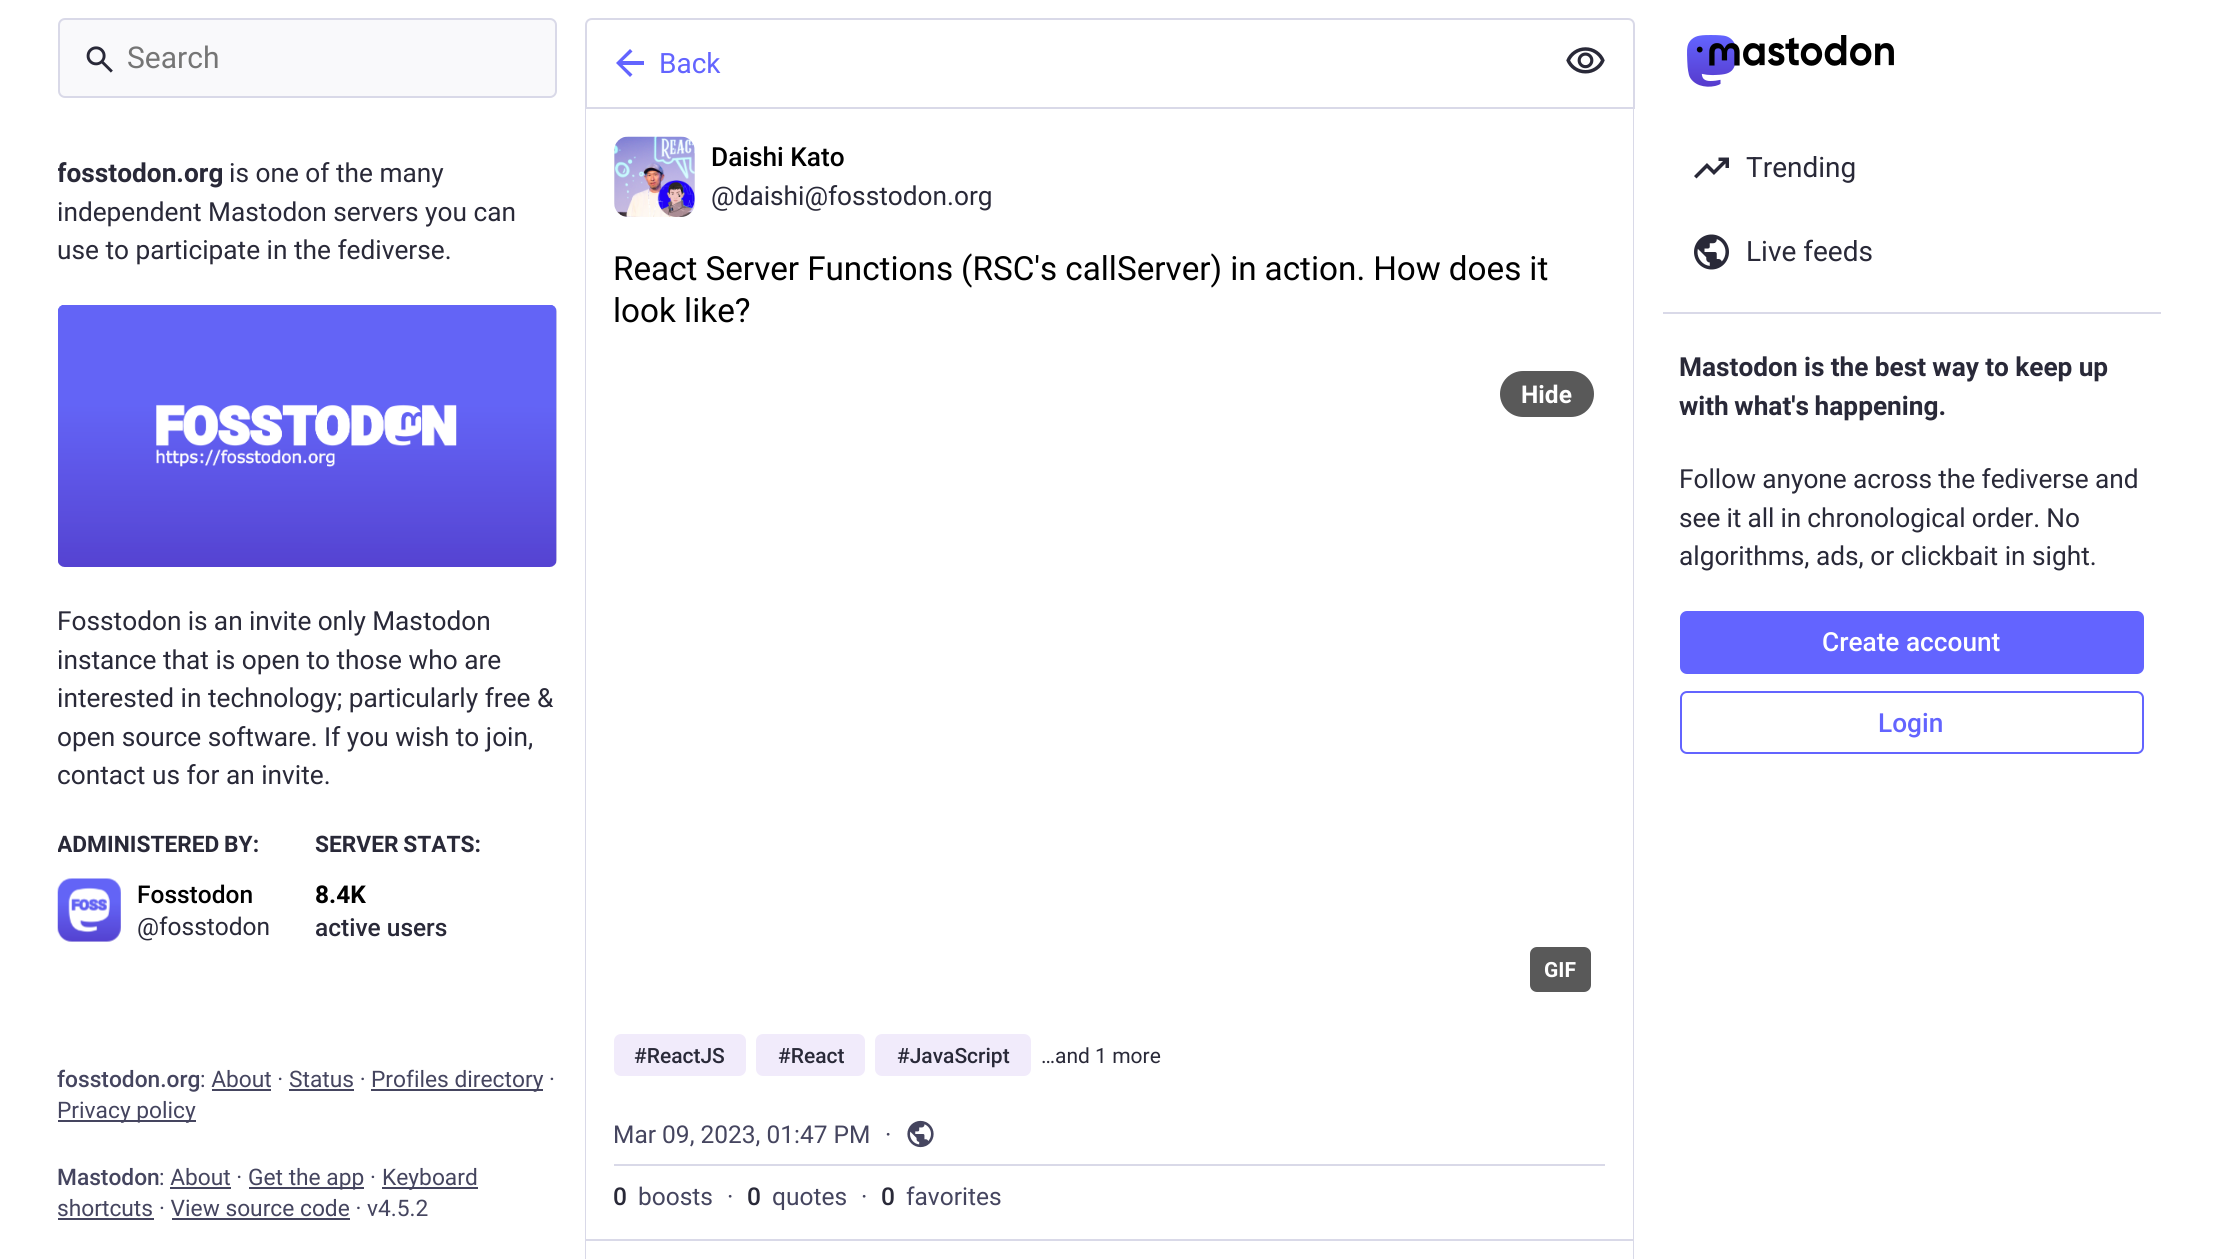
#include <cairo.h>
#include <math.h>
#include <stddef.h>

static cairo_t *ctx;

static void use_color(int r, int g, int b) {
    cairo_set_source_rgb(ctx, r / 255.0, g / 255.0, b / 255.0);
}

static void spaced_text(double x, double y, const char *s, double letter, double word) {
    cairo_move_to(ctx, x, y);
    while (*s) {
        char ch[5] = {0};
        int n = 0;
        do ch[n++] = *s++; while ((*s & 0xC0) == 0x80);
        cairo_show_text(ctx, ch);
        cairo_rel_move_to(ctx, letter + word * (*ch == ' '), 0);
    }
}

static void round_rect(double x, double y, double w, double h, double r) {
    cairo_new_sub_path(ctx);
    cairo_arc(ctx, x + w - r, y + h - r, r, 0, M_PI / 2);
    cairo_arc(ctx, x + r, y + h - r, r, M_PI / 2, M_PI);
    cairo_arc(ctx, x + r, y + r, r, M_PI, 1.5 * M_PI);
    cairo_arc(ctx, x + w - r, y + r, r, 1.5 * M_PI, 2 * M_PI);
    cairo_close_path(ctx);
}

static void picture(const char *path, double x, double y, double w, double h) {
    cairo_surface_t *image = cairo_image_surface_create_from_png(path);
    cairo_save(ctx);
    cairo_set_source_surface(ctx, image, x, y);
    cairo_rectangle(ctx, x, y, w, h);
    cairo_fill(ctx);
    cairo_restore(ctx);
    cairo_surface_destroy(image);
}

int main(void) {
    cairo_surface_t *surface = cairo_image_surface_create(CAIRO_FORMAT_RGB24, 2217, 1259);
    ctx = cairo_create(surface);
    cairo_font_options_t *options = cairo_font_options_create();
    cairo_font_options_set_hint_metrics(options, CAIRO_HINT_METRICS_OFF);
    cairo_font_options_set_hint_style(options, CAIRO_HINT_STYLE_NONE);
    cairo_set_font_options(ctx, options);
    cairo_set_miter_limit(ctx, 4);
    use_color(255, 255, 255);
    cairo_paint(ctx);
    use_color(249, 249, 251);
    round_rect(59, 19, 497, 78, 6);
    cairo_fill_preserve(ctx);
    use_color(217, 217, 232);
    cairo_stroke(ctx);
    picture("img1.png", 86, 46, 27, 27);
    cairo_select_font_face(ctx, "Roboto", CAIRO_FONT_SLANT_NORMAL, CAIRO_FONT_WEIGHT_NORMAL);
    cairo_set_font_size(ctx, 30);
    use_color(117, 117, 117);
    cairo_move_to(ctx, 127, 68);
    cairo_show_text(ctx, "Search");
    cairo_save(ctx);
    cairo_rectangle(ctx, 58, 18, 499, 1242);
    cairo_clip(ctx);
    cairo_select_font_face(ctx, "Roboto", CAIRO_FONT_SLANT_NORMAL, CAIRO_FONT_WEIGHT_BOLD);
    cairo_set_font_size(ctx, 26.25);
    use_color(41, 41, 56);
    cairo_move_to(ctx, 57, 182);
    cairo_show_text(ctx, "fosstodon.org");
    cairo_restore(ctx);
    cairo_set_font_size(ctx, 26.25);
    use_color(41, 41, 56);
    cairo_move_to(ctx, 229, 182);
    cairo_show_text(ctx, "is one of the many");
    cairo_move_to(ctx, 57, 221);
    cairo_show_text(ctx, "independent Mastodon servers you can");
    cairo_move_to(ctx, 57, 259);
    cairo_show_text(ctx, "use to participate in the fediverse.");
    use_color(221, 217, 232);
    round_rect(58, 305, 499, 262, 7);
    cairo_fill(ctx);
    picture("img2.png", 58, 305, 499, 262);
    use_color(41, 41, 56);
    spaced_text(57, 630, "Fosstodon is an invite only Mastodon", 0, -0.25);
    cairo_move_to(ctx, 57, 669);
    cairo_show_text(ctx, "instance that is open to those who are");
    cairo_move_to(ctx, 57, 707);
    cairo_show_text(ctx, "interested in technology; particularly free &");
    cairo_move_to(ctx, 57, 746);
    cairo_show_text(ctx, "open source software.");
    cairo_move_to(ctx, 324, 746);
    cairo_show_text(ctx, "If you wish to join,");
    cairo_move_to(ctx, 57, 784);
    cairo_show_text(ctx, "contact us for an invite.");
    cairo_save(ctx);
    cairo_rectangle(ctx, 58, 830, 240, 115);
    cairo_clip(ctx);
    cairo_select_font_face(ctx, "Roboto", CAIRO_FONT_SLANT_NORMAL, CAIRO_FONT_WEIGHT_BOLD);
    cairo_set_font_size(ctx, 22.75);
    spaced_text(57, 852, "ADMINISTERED BY:", 0, -1);
    cairo_restore(ctx);
    use_color(232, 230, 240);
    round_rect(58, 879, 63, 63, 14);
    cairo_fill(ctx);
    picture("img3.png", 57, 878, 64, 64);
    cairo_select_font_face(ctx, "Roboto Medium", CAIRO_FONT_SLANT_NORMAL, CAIRO_FONT_WEIGHT_NORMAL);
    cairo_set_font_size(ctx, 24.5);
    use_color(0, 0, 0);
    cairo_move_to(ctx, 137, 903);
    cairo_show_text(ctx, "Fosstodon");
    cairo_select_font_face(ctx, "Roboto", CAIRO_FONT_SLANT_NORMAL, CAIRO_FONT_WEIGHT_NORMAL);
    use_color(41, 41, 56);
    cairo_move_to(ctx, 137, 935);
    cairo_show_text(ctx, "@fosstodon");
    cairo_select_font_face(ctx, "Roboto", CAIRO_FONT_SLANT_NORMAL, CAIRO_FONT_WEIGHT_BOLD);
    cairo_set_font_size(ctx, 22.75);
    spaced_text(315, 852, "SERVER STATS:", 0, -1);
    cairo_set_font_size(ctx, 24.5);
    use_color(0, 0, 0);
    cairo_move_to(ctx, 315, 903);
    cairo_show_text(ctx, "8.4K");
    cairo_select_font_face(ctx, "Roboto Medium", CAIRO_FONT_SLANT_NORMAL, CAIRO_FONT_WEIGHT_NORMAL);
    use_color(41, 41, 56);
    cairo_move_to(ctx, 315, 936);
    cairo_show_text(ctx, "active users");
    cairo_set_font_size(ctx, 22.75);
    use_color(69, 69, 95);
    cairo_move_to(ctx, 57, 1087);
    cairo_show_text(ctx, "fosstodon.org");
    cairo_select_font_face(ctx, "Roboto", CAIRO_FONT_SLANT_NORMAL, CAIRO_FONT_WEIGHT_NORMAL);
    cairo_move_to(ctx, 200, 1087);
    cairo_show_text(ctx, ": About · Status ·");
    cairo_rectangle(ctx, 371, 1089, 172, 2);
    cairo_fill(ctx);
    cairo_move_to(ctx, 371, 1087);
    cairo_show_text(ctx, "Profiles directory");
    cairo_move_to(ctx, 549, 1087);
    cairo_show_text(ctx, "·");
    cairo_rectangle(ctx, 212, 1089, 59, 2);
    cairo_fill(ctx);
    cairo_rectangle(ctx, 289, 1089, 65, 2);
    cairo_fill(ctx);
    cairo_rectangle(ctx, 58, 1120, 138, 2);
    cairo_fill(ctx);
    cairo_move_to(ctx, 57, 1118);
    cairo_show_text(ctx, "Privacy policy");
    cairo_select_font_face(ctx, "Roboto Medium", CAIRO_FONT_SLANT_NORMAL, CAIRO_FONT_WEIGHT_NORMAL);
    cairo_move_to(ctx, 57, 1185);
    cairo_show_text(ctx, "Mastodon");
    cairo_select_font_face(ctx, "Roboto", CAIRO_FONT_SLANT_NORMAL, CAIRO_FONT_WEIGHT_NORMAL);
    cairo_move_to(ctx, 159, 1185);
    cairo_show_text(ctx, ": About ·");
    cairo_rectangle(ctx, 249, 1187, 115, 2);
    cairo_fill(ctx);
    cairo_move_to(ctx, 248, 1185);
    cairo_show_text(ctx, "Get the app ·");
    cairo_rectangle(ctx, 382, 1187, 96, 2);
    cairo_fill(ctx);
    cairo_move_to(ctx, 382, 1185);
    cairo_show_text(ctx, "Keyboard");
    cairo_rectangle(ctx, 170, 1187, 61, 2);
    cairo_fill(ctx);
    cairo_move_to(ctx, 57, 1216);
    cairo_show_text(ctx, "shortcuts");
    cairo_rectangle(ctx, 58, 1218, 96, 2);
    cairo_fill(ctx);
    cairo_move_to(ctx, 159, 1216);
    cairo_show_text(ctx, "· View source code · v4.5.2");
    cairo_rectangle(ctx, 172, 1218, 178, 2);
    cairo_fill(ctx);
    cairo_save(ctx);
    cairo_rectangle(ctx, 585, 0, 1050, 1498);
    cairo_clip(ctx);
    use_color(217, 217, 232);
    cairo_set_fill_rule(ctx, CAIRO_FILL_RULE_EVEN_ODD);
    cairo_new_path(ctx);
    cairo_move_to(ctx, 584, 108);
    cairo_line_to(ctx, 1634, 108);
    cairo_line_to(ctx, 1634, 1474);
    cairo_curve_to(ctx, 1634, 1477, 1631, 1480, 1628, 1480);
    cairo_line_to(ctx, 592, 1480);
    cairo_curve_to(ctx, 588, 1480, 584, 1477, 584, 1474);
    cairo_close_path(ctx);
    cairo_move_to(ctx, 586, 108);
    cairo_line_to(ctx, 1633, 108);
    cairo_line_to(ctx, 1633, 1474);
    cairo_curve_to(ctx, 1633, 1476, 1630, 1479, 1628, 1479);
    cairo_line_to(ctx, 592, 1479);
    cairo_curve_to(ctx, 589, 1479, 586, 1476, 586, 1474);
    cairo_close_path(ctx);
    cairo_fill(ctx);
    cairo_restore(ctx);
    cairo_new_path(ctx);
    cairo_move_to(ctx, 592, 19);
    cairo_line_to(ctx, 1628, 19);
    cairo_curve_to(ctx, 1631.5, 19, 1634, 21.5, 1634, 25);
    cairo_line_to(ctx, 1634, 108);
    cairo_line_to(ctx, 586, 108);
    cairo_line_to(ctx, 586, 25);
    cairo_curve_to(ctx, 586, 21.5, 588.5, 19, 592, 19);
    cairo_close_path(ctx);
    use_color(217, 217, 232);
    cairo_stroke(ctx);
    use_color(99, 100, 255);
    cairo_new_path(ctx);
    cairo_move_to(ctx, 622.5, 65);
    cairo_line_to(ctx, 632.5, 74.5);
    cairo_line_to(ctx, 630, 77);
    cairo_line_to(ctx, 616, 63);
    cairo_line_to(ctx, 630, 49);
    cairo_line_to(ctx, 632.5, 51.5);
    cairo_line_to(ctx, 622.5, 61);
    cairo_line_to(ctx, 644, 61);
    cairo_line_to(ctx, 644, 65);
    cairo_close_path(ctx);
    cairo_fill(ctx);
    cairo_set_font_size(ctx, 28);
    cairo_move_to(ctx, 659, 73);
    cairo_show_text(ctx, "Back");
    picture("img4.png", 1566, 47, 39, 27);
    use_color(232, 230, 240);
    round_rect(614, 137, 81, 80, 14);
    cairo_fill(ctx);
    picture("img5.png", 614, 136, 81, 81);
    cairo_select_font_face(ctx, "Roboto Medium", CAIRO_FONT_SLANT_NORMAL, CAIRO_FONT_WEIGHT_NORMAL);
    cairo_set_font_size(ctx, 26.25);
    use_color(0, 0, 0);
    cairo_move_to(ctx, 711, 166);
    cairo_show_text(ctx, "Daishi Kato");
    cairo_select_font_face(ctx, "Roboto", CAIRO_FONT_SLANT_NORMAL, CAIRO_FONT_WEIGHT_NORMAL);
    use_color(41, 41, 56);
    cairo_move_to(ctx, 711, 205);
    cairo_show_text(ctx, "@daishi@fosstodon.org");
    cairo_set_font_size(ctx, 33.25);
    use_color(0, 0, 0);
    spaced_text(613, 280, "React Server Functions (RSC's callServer) in action. How does it", 0, -0.25);
    cairo_move_to(ctx, 613, 322);
    cairo_show_text(ctx, "look like?");
    use_color(89, 89, 89);
    round_rect(1500, 371, 94, 46, 23);
    cairo_fill(ctx);
    cairo_select_font_face(ctx, "Roboto", CAIRO_FONT_SLANT_NORMAL, CAIRO_FONT_WEIGHT_BOLD);
    cairo_set_font_size(ctx, 24.5);
    use_color(255, 255, 255);
    cairo_move_to(ctx, 1521, 403);
    cairo_show_text(ctx, "Hide");
    use_color(89, 89, 89);
    round_rect(1530, 947, 61, 45, 7);
    cairo_fill(ctx);
    cairo_set_font_size(ctx, 21);
    use_color(255, 255, 255);
    cairo_move_to(ctx, 1544, 977);
    cairo_show_text(ctx, "GIF");
    use_color(241, 235, 251);
    round_rect(614, 1034, 132, 42, 7);
    cairo_fill(ctx);
    cairo_select_font_face(ctx, "Roboto Medium", CAIRO_FONT_SLANT_NORMAL, CAIRO_FONT_WEIGHT_NORMAL);
    use_color(41, 41, 56);
    cairo_move_to(ctx, 634, 1063);
    cairo_show_text(ctx, "#ReactJS");
    use_color(241, 235, 251);
    round_rect(756, 1034, 109, 42, 7);
    cairo_fill(ctx);
    use_color(41, 41, 56);
    cairo_move_to(ctx, 778, 1063);
    cairo_show_text(ctx, "#React");
    use_color(241, 235, 251);
    round_rect(875, 1034, 156, 42, 7);
    cairo_fill(ctx);
    use_color(41, 41, 56);
    cairo_move_to(ctx, 897, 1063);
    cairo_show_text(ctx, "#JavaScript");
    cairo_select_font_face(ctx, "Roboto", CAIRO_FONT_SLANT_NORMAL, CAIRO_FONT_WEIGHT_NORMAL);
    cairo_move_to(ctx, 1041, 1063);
    cairo_show_text(ctx, "…and 1 more");
    use_color(217, 217, 232);
    cairo_rectangle(ctx, 614, 1164, 991, 2);
    cairo_fill(ctx);
    cairo_set_font_size(ctx, 24.5);
    use_color(69, 69, 95);
    cairo_move_to(ctx, 613, 1143);
    cairo_show_text(ctx, "Mar 09, 2023, 01:47 PM");
    cairo_move_to(ctx, 885, 1143);
    cairo_show_text(ctx, "·");
    picture("img6.png", 907, 1120, 27, 28);
    cairo_select_font_face(ctx, "Roboto Medium", CAIRO_FONT_SLANT_NORMAL, CAIRO_FONT_WEIGHT_NORMAL);
    use_color(41, 41, 56);
    cairo_move_to(ctx, 613, 1205);
    cairo_show_text(ctx, "0");
    cairo_select_font_face(ctx, "Roboto", CAIRO_FONT_SLANT_NORMAL, CAIRO_FONT_WEIGHT_NORMAL);
    use_color(69, 69, 95);
    cairo_move_to(ctx, 638, 1205);
    cairo_show_text(ctx, "boosts");
    cairo_move_to(ctx, 727, 1205);
    cairo_show_text(ctx, "·");
    cairo_select_font_face(ctx, "Roboto Medium", CAIRO_FONT_SLANT_NORMAL, CAIRO_FONT_WEIGHT_NORMAL);
    use_color(41, 41, 56);
    cairo_move_to(ctx, 747, 1205);
    cairo_show_text(ctx, "0");
    cairo_select_font_face(ctx, "Roboto", CAIRO_FONT_SLANT_NORMAL, CAIRO_FONT_WEIGHT_NORMAL);
    use_color(69, 69, 95);
    cairo_move_to(ctx, 772, 1205);
    cairo_show_text(ctx, "quotes");
    cairo_move_to(ctx, 861, 1205);
    cairo_show_text(ctx, "·");
    cairo_select_font_face(ctx, "Roboto Medium", CAIRO_FONT_SLANT_NORMAL, CAIRO_FONT_WEIGHT_NORMAL);
    use_color(41, 41, 56);
    cairo_move_to(ctx, 881, 1205);
    cairo_show_text(ctx, "0");
    cairo_select_font_face(ctx, "Roboto", CAIRO_FONT_SLANT_NORMAL, CAIRO_FONT_WEIGHT_NORMAL);
    use_color(69, 69, 95);
    cairo_move_to(ctx, 906, 1205);
    cairo_show_text(ctx, "favorites");
    use_color(217, 217, 232);
    cairo_rectangle(ctx, 586, 1239, 1047, 2);
    cairo_fill(ctx);
    picture("img7.png", 1687, 35, 207, 52);
    picture("img8.png", 1694, 157, 35, 22);
    cairo_set_font_size(ctx, 28);
    use_color(41, 41, 56);
    cairo_move_to(ctx, 1746, 177);
    cairo_show_text(ctx, "Trending");
    picture("img9.png", 1694, 234, 35, 36);
    cairo_move_to(ctx, 1746, 261);
    cairo_show_text(ctx, "Live feeds");
    use_color(217, 217, 232);
    cairo_rectangle(ctx, 1663, 312, 498, 2);
    cairo_fill(ctx);
    cairo_select_font_face(ctx, "Roboto", CAIRO_FONT_SLANT_NORMAL, CAIRO_FONT_WEIGHT_BOLD);
    cairo_set_font_size(ctx, 26.25);
    use_color(41, 41, 56);
    spaced_text(1679, 376, "Mastodon is the best way to keep up", 0, -0.25);
    spaced_text(1679, 415, "with what's happening.", 0, -1);
    cairo_select_font_face(ctx, "Roboto", CAIRO_FONT_SLANT_NORMAL, CAIRO_FONT_WEIGHT_NORMAL);
    spaced_text(1679, 488, "Follow anyone across the fediverse and", 0, -0.25);
    spaced_text(1679, 527, "see it all in chronological order. No", 0, -0.5);
    cairo_move_to(ctx, 1679, 565);
    cairo_show_text(ctx, "algorithms, ads, or clickbait in sight.");
    use_color(99, 100, 255);
    round_rect(1680, 611, 464, 63, 7);
    cairo_fill(ctx);
    cairo_select_font_face(ctx, "Roboto Medium", CAIRO_FONT_SLANT_NORMAL, CAIRO_FONT_WEIGHT_NORMAL);
    use_color(255, 255, 255);
    cairo_move_to(ctx, 1822, 651);
    cairo_show_text(ctx, "Create account");
    round_rect(1681, 692, 462, 61, 6);
    use_color(99, 100, 255);
    cairo_stroke(ctx);
    cairo_move_to(ctx, 1878, 732);
    cairo_show_text(ctx, "Login");
    cairo_surface_write_to_png(surface, "result.png");
    cairo_font_options_destroy(options);
    cairo_destroy(ctx);
    cairo_surface_destroy(surface);
    return 0;
}
